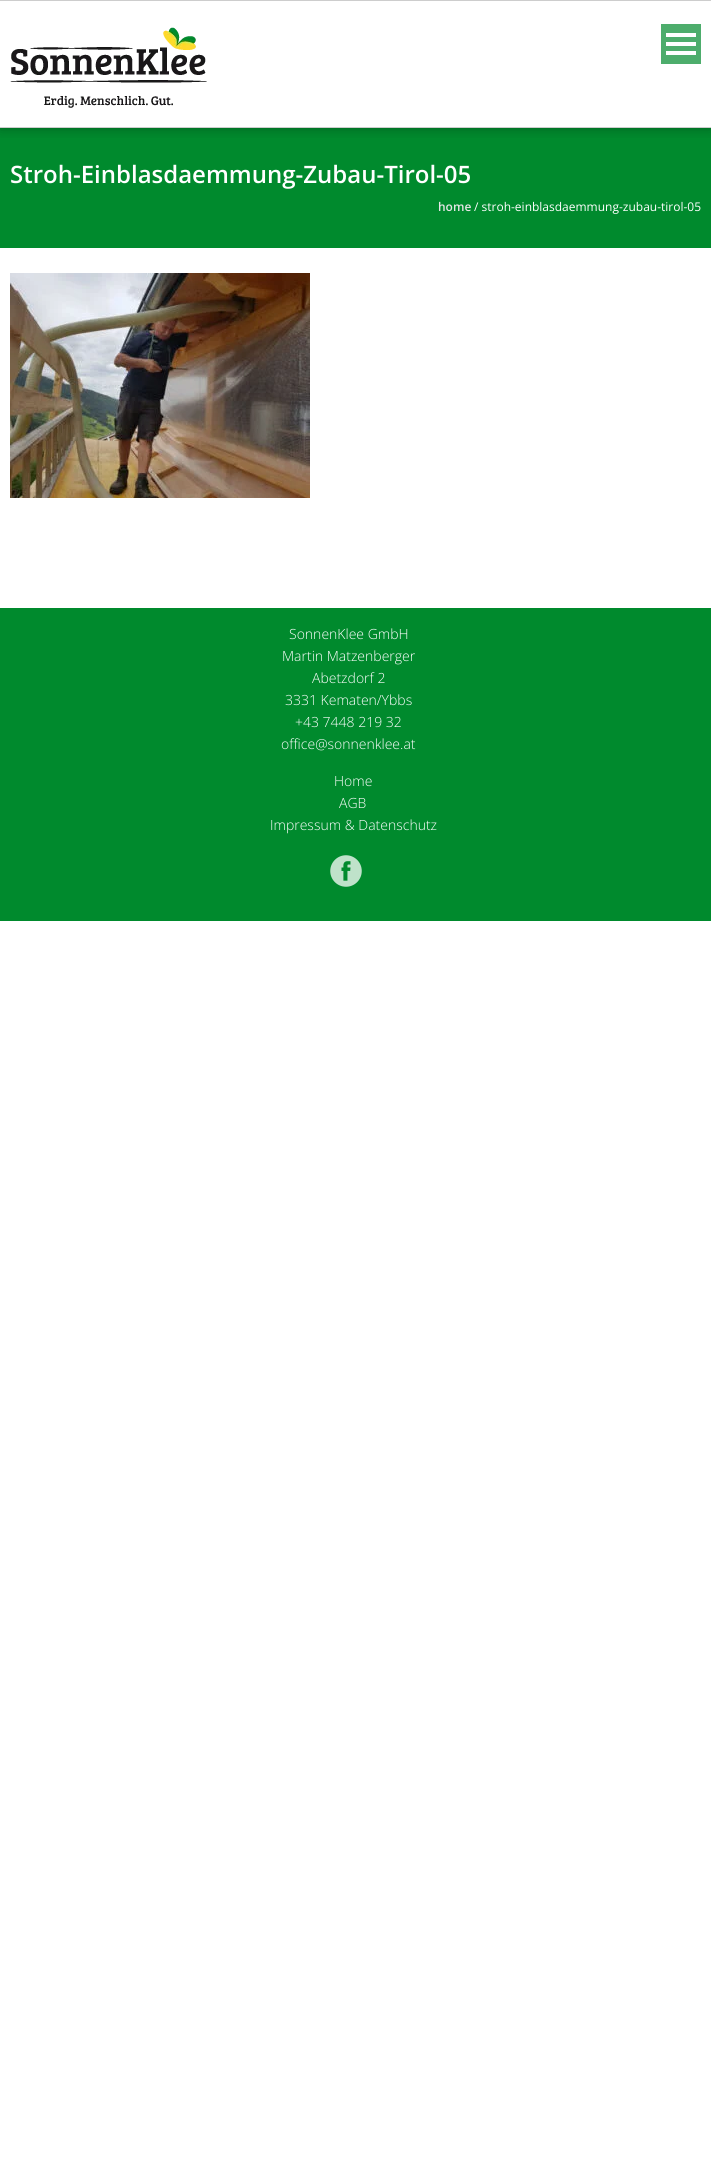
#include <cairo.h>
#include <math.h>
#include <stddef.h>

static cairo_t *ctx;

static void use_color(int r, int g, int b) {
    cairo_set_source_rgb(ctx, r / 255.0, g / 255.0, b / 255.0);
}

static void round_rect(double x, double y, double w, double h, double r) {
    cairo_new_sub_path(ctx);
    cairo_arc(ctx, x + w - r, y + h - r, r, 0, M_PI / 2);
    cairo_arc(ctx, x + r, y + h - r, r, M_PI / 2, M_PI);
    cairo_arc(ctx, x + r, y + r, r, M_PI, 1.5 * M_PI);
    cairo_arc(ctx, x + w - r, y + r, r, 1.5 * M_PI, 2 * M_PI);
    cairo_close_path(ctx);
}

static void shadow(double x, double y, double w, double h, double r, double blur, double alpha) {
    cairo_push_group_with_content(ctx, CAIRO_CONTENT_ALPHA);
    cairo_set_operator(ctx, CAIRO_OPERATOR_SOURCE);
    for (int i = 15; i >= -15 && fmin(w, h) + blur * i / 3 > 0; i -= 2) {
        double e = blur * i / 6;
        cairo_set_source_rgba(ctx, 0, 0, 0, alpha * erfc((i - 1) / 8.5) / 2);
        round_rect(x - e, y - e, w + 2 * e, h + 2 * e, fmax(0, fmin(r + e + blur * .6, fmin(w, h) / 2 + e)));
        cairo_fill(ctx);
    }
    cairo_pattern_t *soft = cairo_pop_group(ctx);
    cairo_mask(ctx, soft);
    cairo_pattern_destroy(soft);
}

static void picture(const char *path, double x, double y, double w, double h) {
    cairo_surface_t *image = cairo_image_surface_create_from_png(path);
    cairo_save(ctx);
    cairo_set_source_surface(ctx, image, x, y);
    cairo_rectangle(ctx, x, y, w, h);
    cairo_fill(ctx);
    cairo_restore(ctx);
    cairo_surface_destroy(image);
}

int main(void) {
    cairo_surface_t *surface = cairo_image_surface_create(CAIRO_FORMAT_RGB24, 711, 2183);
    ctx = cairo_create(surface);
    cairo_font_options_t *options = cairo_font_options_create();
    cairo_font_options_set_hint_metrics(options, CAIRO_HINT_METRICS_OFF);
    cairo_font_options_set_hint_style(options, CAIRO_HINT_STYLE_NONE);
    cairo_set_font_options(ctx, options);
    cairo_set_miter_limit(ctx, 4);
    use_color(255, 255, 255);
    cairo_paint(ctx);
    use_color(0, 138, 45);
    cairo_rectangle(ctx, 0, 128, 711, 120);
    cairo_fill(ctx);
    cairo_save(ctx);
    cairo_rectangle(ctx, 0, 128, 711, 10);
    cairo_clip(ctx);
    use_color(0, 0, 0);
    shadow(0, 0, 711, 128, 0, 6.5, 0.3);
    cairo_restore(ctx);
    use_color(205, 205, 205);
    cairo_rectangle(ctx, 0, 0, 711, 1);
    cairo_fill(ctx);
    cairo_rectangle(ctx, 0, 127, 711, 1);
    cairo_fill(ctx);
    picture("img1.png", 10, 27, 197, 81);
    use_color(77, 173, 108);
    cairo_rectangle(ctx, 661, 24, 40, 40);
    cairo_fill(ctx);
    use_color(255, 255, 255);
    cairo_rectangle(ctx, 666, 33, 30, 4);
    cairo_fill(ctx);
    cairo_rectangle(ctx, 666, 42, 30, 4);
    cairo_fill(ctx);
    cairo_rectangle(ctx, 666, 51, 30, 4);
    cairo_fill(ctx);
    cairo_select_font_face(ctx, "Open Sans SemiBold", CAIRO_FONT_SLANT_NORMAL, CAIRO_FONT_WEIGHT_NORMAL);
    cairo_set_font_size(ctx, 24);
    cairo_move_to(ctx, 10, 183);
    cairo_show_text(ctx, "Stroh-Einblasdaemmung-Zubau-Tirol-05");
    cairo_set_font_size(ctx, 12);
    use_color(230, 230, 230);
    cairo_move_to(ctx, 438, 211);
    cairo_show_text(ctx, "home");
    cairo_select_font_face(ctx, "Open Sans", CAIRO_FONT_SLANT_NORMAL, CAIRO_FONT_WEIGHT_NORMAL);
    use_color(255, 255, 255);
    cairo_move_to(ctx, 474, 211);
    cairo_show_text(ctx, "/ stroh-einblasdaemmung-zubau-tirol-05");
    picture("img2.png", 10, 273, 300, 225);
    use_color(0, 138, 45);
    cairo_rectangle(ctx, 0, 608, 711, 313);
    cairo_fill(ctx);
    cairo_select_font_face(ctx, "Open Sans Light", CAIRO_FONT_SLANT_NORMAL, CAIRO_FONT_WEIGHT_NORMAL);
    cairo_set_font_size(ctx, 14);
    use_color(255, 255, 255);
    cairo_move_to(ctx, 289, 639);
    cairo_show_text(ctx, "SonnenKlee GmbH");
    cairo_move_to(ctx, 282, 661);
    cairo_show_text(ctx, "Martin Matzenberger");
    cairo_move_to(ctx, 312, 683);
    cairo_show_text(ctx, "Abetzdorf 2");
    cairo_move_to(ctx, 285, 705);
    cairo_show_text(ctx, "3331 Kematen/Ybbs");
    cairo_move_to(ctx, 295, 727);
    cairo_show_text(ctx, "+43 7448 219 32");
    cairo_move_to(ctx, 281, 749);
    cairo_show_text(ctx, "office@sonnenklee.at");
    cairo_move_to(ctx, 334, 786);
    cairo_show_text(ctx, "Home");
    cairo_move_to(ctx, 339, 808);
    cairo_show_text(ctx, "AGB");
    cairo_move_to(ctx, 270, 830);
    cairo_show_text(ctx, "Impressum & Datenschutz");
    picture("img3.png", 330, 855, 32, 32);
    cairo_surface_write_to_png(surface, "result.png");
    cairo_font_options_destroy(options);
    cairo_destroy(ctx);
    cairo_surface_destroy(surface);
    return 0;
}
